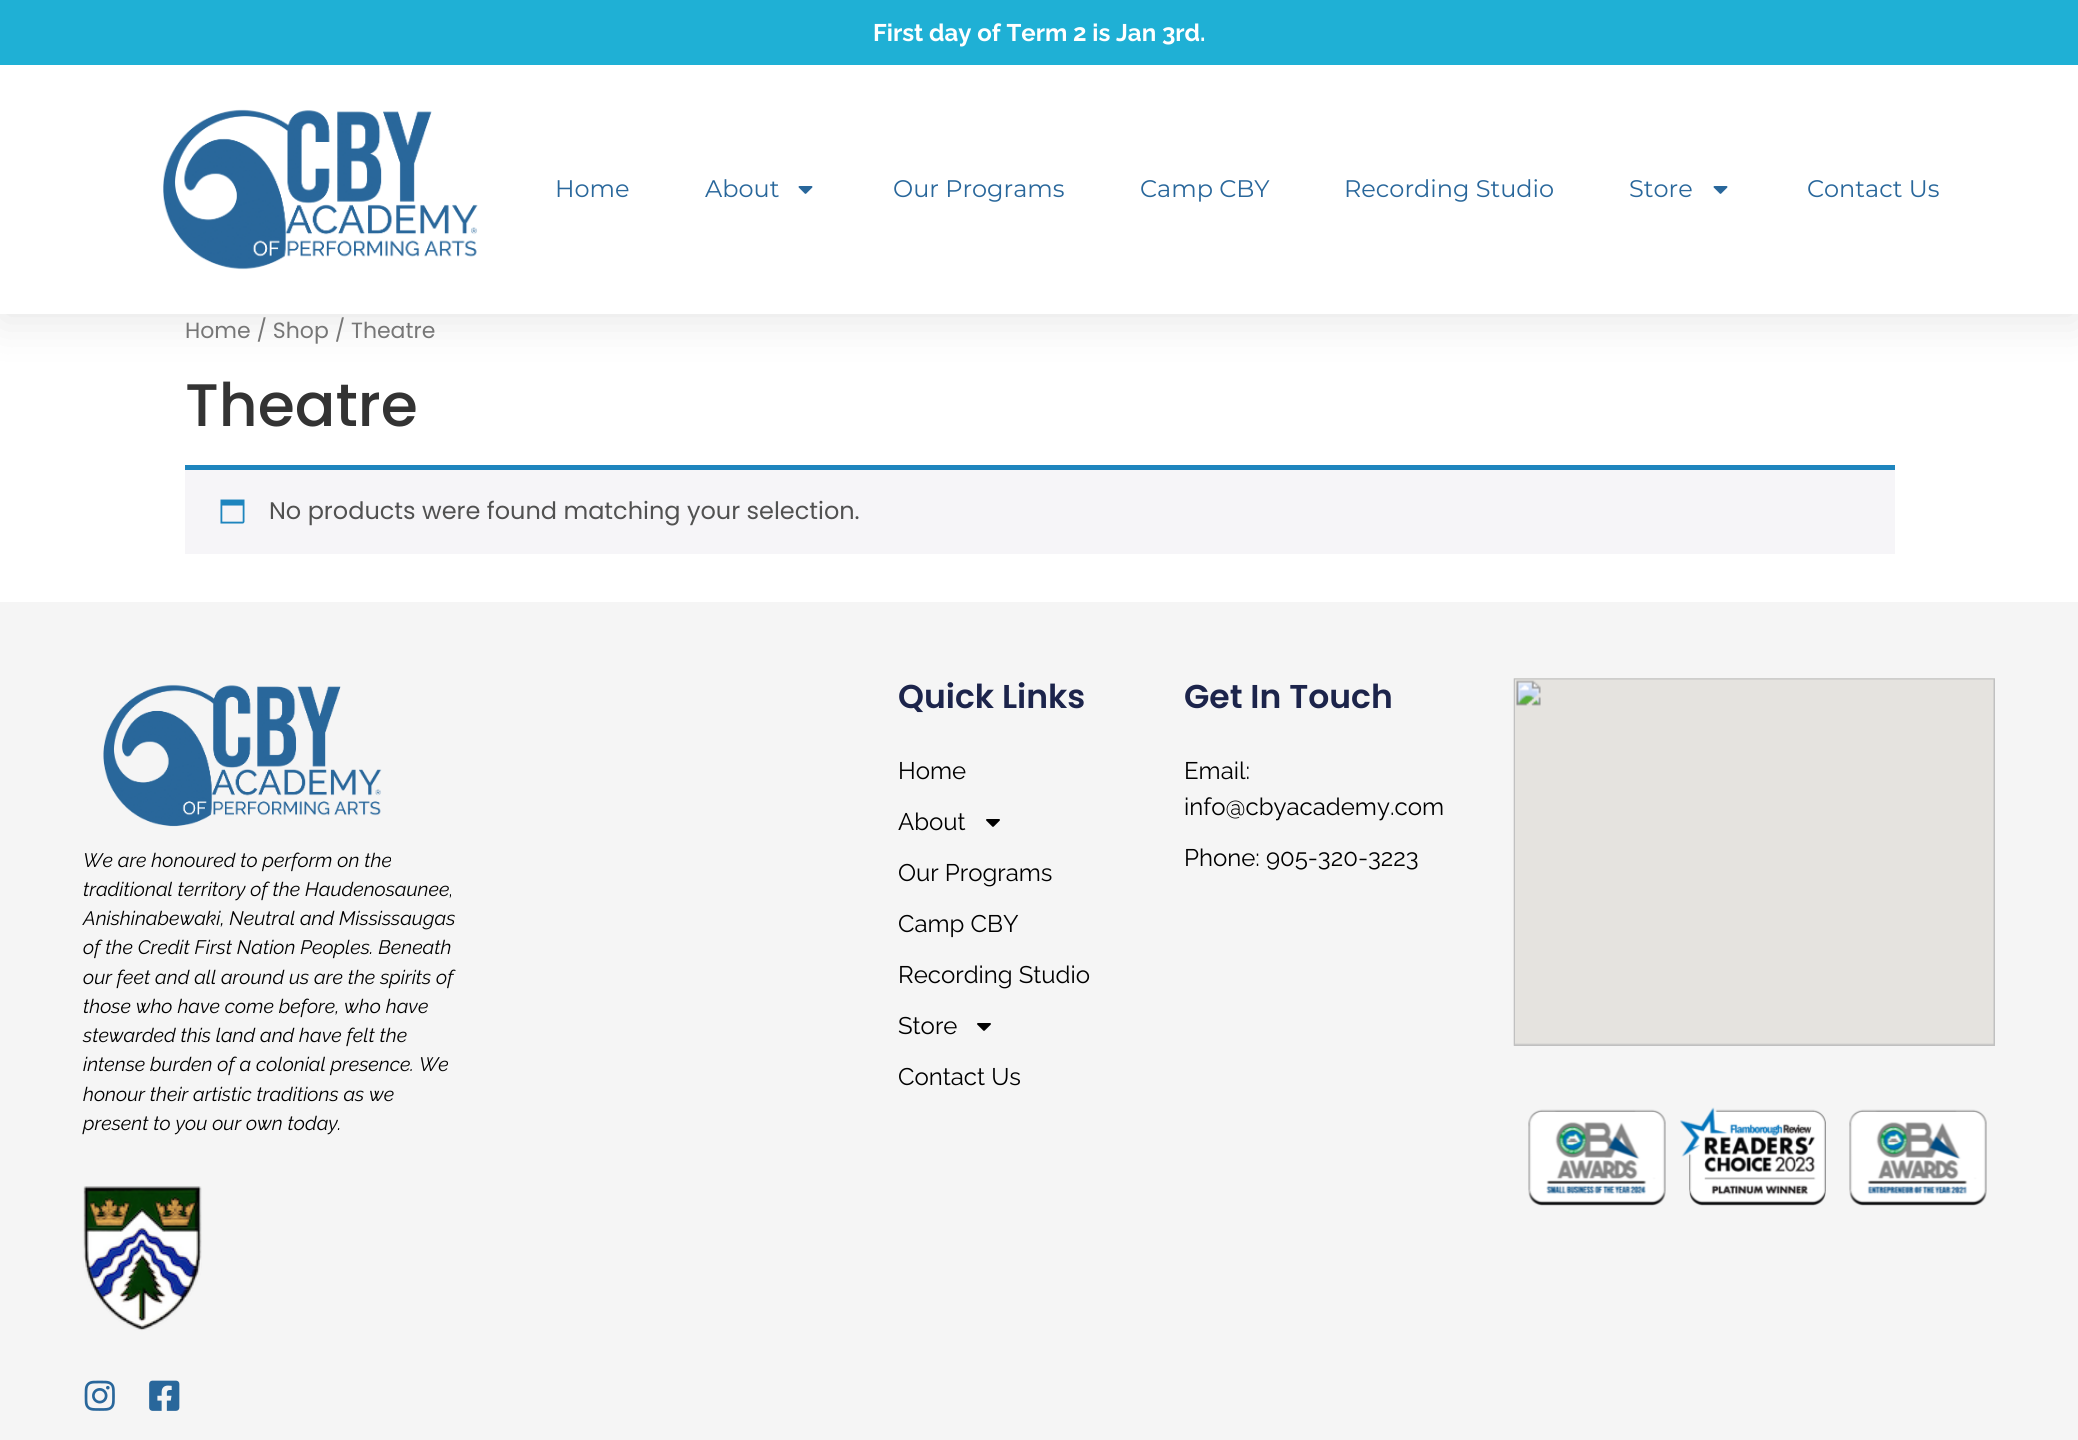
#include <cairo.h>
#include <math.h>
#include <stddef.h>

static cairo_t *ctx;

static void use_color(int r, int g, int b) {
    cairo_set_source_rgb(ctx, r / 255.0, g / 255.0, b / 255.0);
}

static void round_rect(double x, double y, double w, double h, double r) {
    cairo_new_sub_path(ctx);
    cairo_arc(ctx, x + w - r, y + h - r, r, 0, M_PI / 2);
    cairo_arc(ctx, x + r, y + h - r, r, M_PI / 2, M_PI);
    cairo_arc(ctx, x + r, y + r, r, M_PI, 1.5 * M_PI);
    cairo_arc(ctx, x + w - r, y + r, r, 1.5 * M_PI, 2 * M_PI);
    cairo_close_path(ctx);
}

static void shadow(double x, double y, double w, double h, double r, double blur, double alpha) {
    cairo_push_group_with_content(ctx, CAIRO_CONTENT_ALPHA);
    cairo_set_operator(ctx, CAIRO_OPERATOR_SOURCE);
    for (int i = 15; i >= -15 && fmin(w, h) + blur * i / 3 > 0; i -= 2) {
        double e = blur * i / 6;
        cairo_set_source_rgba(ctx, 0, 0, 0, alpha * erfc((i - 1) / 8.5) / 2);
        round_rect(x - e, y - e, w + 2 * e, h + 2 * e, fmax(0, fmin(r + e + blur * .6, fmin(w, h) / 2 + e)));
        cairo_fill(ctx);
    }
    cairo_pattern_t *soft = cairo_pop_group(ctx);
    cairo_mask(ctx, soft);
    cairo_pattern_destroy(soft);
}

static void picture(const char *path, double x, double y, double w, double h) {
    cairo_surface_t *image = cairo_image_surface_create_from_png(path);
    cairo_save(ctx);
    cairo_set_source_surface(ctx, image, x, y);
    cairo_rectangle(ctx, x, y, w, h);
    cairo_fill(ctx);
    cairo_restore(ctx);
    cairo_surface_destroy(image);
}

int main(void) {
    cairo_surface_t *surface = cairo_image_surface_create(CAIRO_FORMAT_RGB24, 2078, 1440);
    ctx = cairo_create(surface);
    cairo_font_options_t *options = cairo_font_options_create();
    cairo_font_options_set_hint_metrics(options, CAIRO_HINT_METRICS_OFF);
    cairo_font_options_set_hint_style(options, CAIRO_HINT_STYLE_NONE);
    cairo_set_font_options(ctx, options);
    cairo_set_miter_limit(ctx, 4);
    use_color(255, 255, 255);
    cairo_paint(ctx);
    use_color(0, 0, 0);
    shadow(0, 8, 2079, 313, 0, 22.5, 0.1);
    use_color(31, 176, 213);
    cairo_rectangle(ctx, 0, 0, 2078, 65);
    cairo_fill(ctx);
    cairo_select_font_face(ctx, "Raleway", CAIRO_FONT_SLANT_NORMAL, CAIRO_FONT_WEIGHT_BOLD);
    cairo_set_font_size(ctx, 24);
    use_color(255, 255, 255);
    cairo_move_to(ctx, 873, 41);
    cairo_show_text(ctx, "First day of Term 2 is Jan 3rd.");
    cairo_rectangle(ctx, 0, 65, 2078, 249);
    cairo_fill(ctx);
    picture("img1.png", 163, 109, 315, 161);
    cairo_select_font_face(ctx, "Montserrat", CAIRO_FONT_SLANT_NORMAL, CAIRO_FONT_WEIGHT_NORMAL);
    use_color(41, 103, 155);
    cairo_move_to(ctx, 555, 197);
    cairo_show_text(ctx, "Home");
    cairo_move_to(ctx, 705, 197);
    cairo_show_text(ctx, "About");
    picture("img2.png", 798, 186, 15, 8);
    cairo_move_to(ctx, 893, 197);
    cairo_show_text(ctx, "Our Programs");
    cairo_move_to(ctx, 1140, 197);
    cairo_show_text(ctx, "Camp CBY");
    cairo_move_to(ctx, 1344, 197);
    cairo_show_text(ctx, "Recording Studio");
    cairo_move_to(ctx, 1629, 197);
    cairo_show_text(ctx, "Store");
    picture("img2.png", 1713, 186, 15, 8);
    cairo_move_to(ctx, 1807, 197);
    cairo_show_text(ctx, "Contact Us");
    cairo_select_font_face(ctx, "Poppins", CAIRO_FONT_SLANT_NORMAL, CAIRO_FONT_WEIGHT_NORMAL);
    cairo_set_font_size(ctx, 22);
    use_color(118, 118, 118);
    cairo_move_to(ctx, 185, 338);
    cairo_show_text(ctx, "Home / Shop / Theatre");
    cairo_select_font_face(ctx, "Poppins Medium", CAIRO_FONT_SLANT_NORMAL, CAIRO_FONT_WEIGHT_NORMAL);
    cairo_set_font_size(ctx, 60);
    use_color(51, 51, 51);
    cairo_move_to(ctx, 185, 426);
    cairo_show_text(ctx, "Theatre");
    use_color(246, 245, 248);
    cairo_rectangle(ctx, 185, 470, 1710, 84);
    cairo_fill(ctx);
    use_color(30, 133, 190);
    cairo_rectangle(ctx, 185, 465, 1710, 5);
    cairo_fill(ctx);
    picture("img3.png", 220, 499, 25, 25);
    cairo_select_font_face(ctx, "Poppins", CAIRO_FONT_SLANT_NORMAL, CAIRO_FONT_WEIGHT_NORMAL);
    cairo_set_font_size(ctx, 24);
    use_color(81, 81, 81);
    cairo_move_to(ctx, 269, 519);
    cairo_show_text(ctx, "No products were found matching your selection.");
    use_color(245, 245, 245);
    cairo_rectangle(ctx, 0, 602, 2078, 838);
    cairo_fill(ctx);
    cairo_select_font_face(ctx, "Poppins SemiBold", CAIRO_FONT_SLANT_NORMAL, CAIRO_FONT_WEIGHT_NORMAL);
    cairo_set_font_size(ctx, 33);
    use_color(28, 36, 75);
    cairo_move_to(ctx, 898, 708);
    cairo_show_text(ctx, "Quick Links");
    cairo_select_font_face(ctx, "Raleway", CAIRO_FONT_SLANT_NORMAL, CAIRO_FONT_WEIGHT_NORMAL);
    cairo_set_font_size(ctx, 24);
    use_color(0, 0, 0);
    cairo_move_to(ctx, 898, 779);
    cairo_show_text(ctx, "Home");
    cairo_move_to(ctx, 898, 830);
    cairo_show_text(ctx, "About");
    picture("img4.png", 986, 819, 14, 8);
    cairo_move_to(ctx, 898, 881);
    cairo_show_text(ctx, "Our Programs");
    cairo_move_to(ctx, 898, 932);
    cairo_show_text(ctx, "Camp CBY");
    cairo_move_to(ctx, 898, 983);
    cairo_show_text(ctx, "Recording Studio");
    cairo_move_to(ctx, 898, 1034);
    cairo_show_text(ctx, "Store");
    picture("img4.png", 977, 1023, 14, 8);
    cairo_move_to(ctx, 898, 1085);
    cairo_show_text(ctx, "Contact Us");
    cairo_select_font_face(ctx, "Poppins SemiBold", CAIRO_FONT_SLANT_NORMAL, CAIRO_FONT_WEIGHT_NORMAL);
    cairo_set_font_size(ctx, 33);
    use_color(28, 36, 75);
    cairo_move_to(ctx, 1184, 708);
    cairo_show_text(ctx, "Get In Touch");
    cairo_select_font_face(ctx, "Raleway", CAIRO_FONT_SLANT_NORMAL, CAIRO_FONT_WEIGHT_NORMAL);
    cairo_set_font_size(ctx, 24);
    use_color(0, 0, 0);
    cairo_move_to(ctx, 1184, 779);
    cairo_show_text(ctx, "Email:");
    cairo_move_to(ctx, 1184, 815);
    cairo_show_text(ctx, "info@cbyacademy.com");
    cairo_move_to(ctx, 1184, 866);
    cairo_show_text(ctx, "Phone: 905-320-3223");
    picture("img5.png", 1513, 678, 482, 368);
    picture("img6.png", 1528, 1109, 138, 97);
    picture("img7.png", 1680, 1107, 146, 99);
    picture("img8.png", 1849, 1109, 138, 97);
    picture("img9.png", 103, 684, 279, 143);
    cairo_select_font_face(ctx, "Raleway", CAIRO_FONT_SLANT_ITALIC, CAIRO_FONT_WEIGHT_NORMAL);
    cairo_set_font_size(ctx, 19.5);
    cairo_move_to(ctx, 83, 867);
    cairo_show_text(ctx, "We are honoured to perform on the");
    cairo_move_to(ctx, 83, 896);
    cairo_show_text(ctx, "traditional territory of the Haudenosaunee,");
    cairo_move_to(ctx, 83, 925);
    cairo_show_text(ctx, "Anishinabewaki, Neutral and Mississaugas");
    cairo_move_to(ctx, 83, 954);
    cairo_show_text(ctx, "of the Credit First Nation Peoples. Beneath");
    cairo_move_to(ctx, 83, 984);
    cairo_show_text(ctx, "our feet and all around us are the spirits of");
    cairo_move_to(ctx, 83, 1013);
    cairo_show_text(ctx, "those who have come before, who have");
    cairo_move_to(ctx, 83, 1042);
    cairo_show_text(ctx, "stewarded this land and have felt the");
    cairo_move_to(ctx, 83, 1071);
    cairo_show_text(ctx, "intense burden of a colonial presence. We");
    cairo_move_to(ctx, 83, 1101);
    cairo_show_text(ctx, "honour their artistic traditions as we");
    cairo_move_to(ctx, 83, 1130);
    cairo_show_text(ctx, "present to you our own today.");
    picture("img10.png", 83, 1186, 119, 145);
    picture("img11.png", 84, 1380, 31, 31);
    picture("img12.png", 149, 1380, 31, 31);
    cairo_surface_write_to_png(surface, "result.png");
    cairo_font_options_destroy(options);
    cairo_destroy(ctx);
    cairo_surface_destroy(surface);
    return 0;
}
